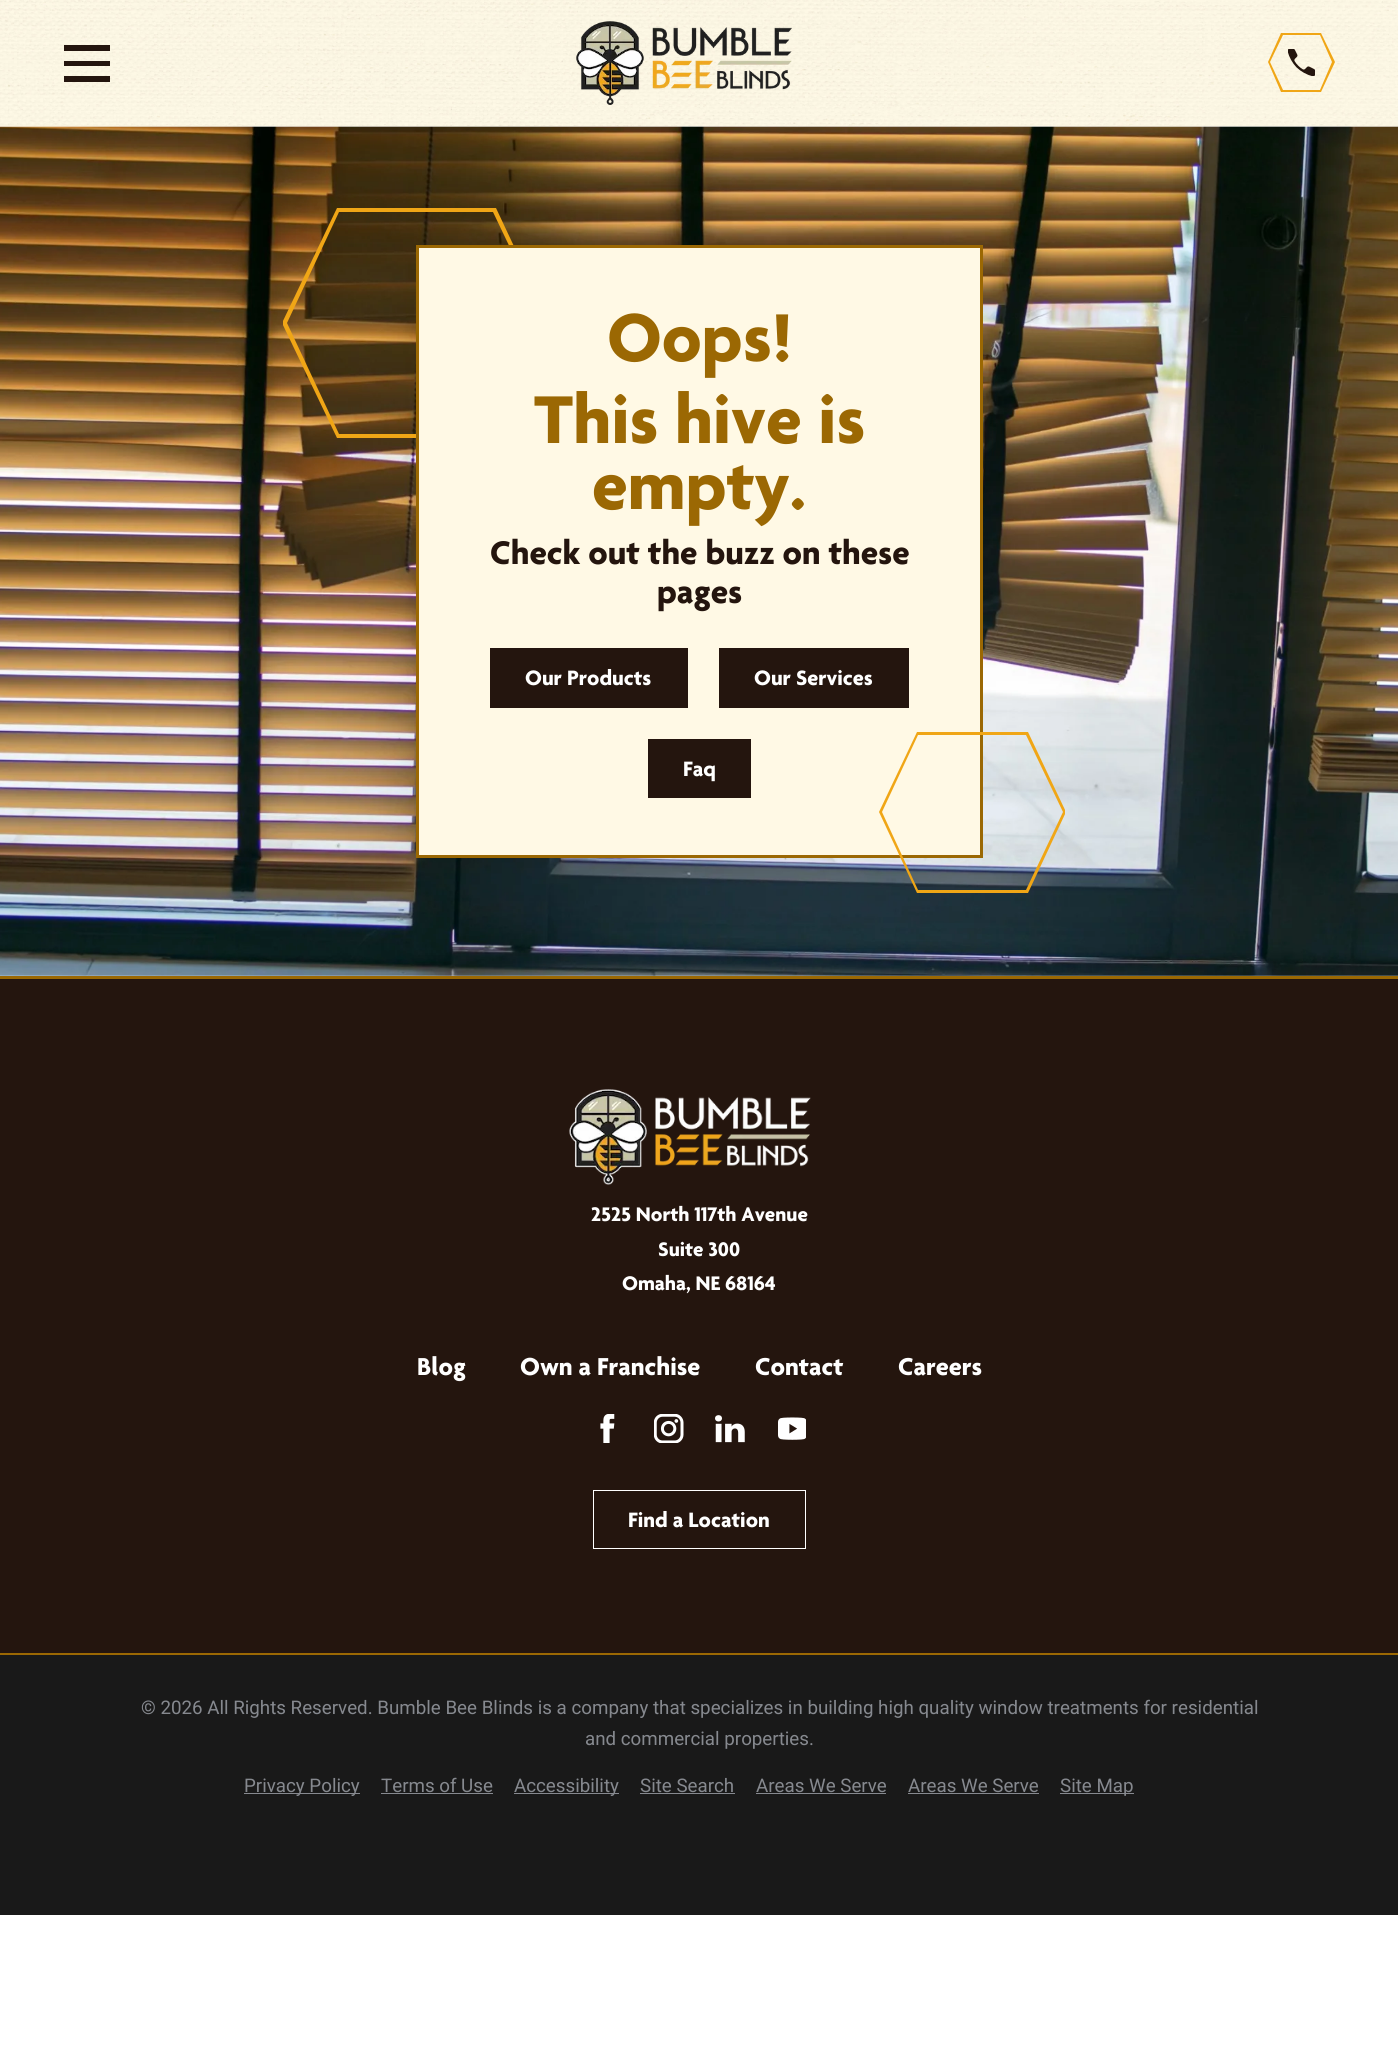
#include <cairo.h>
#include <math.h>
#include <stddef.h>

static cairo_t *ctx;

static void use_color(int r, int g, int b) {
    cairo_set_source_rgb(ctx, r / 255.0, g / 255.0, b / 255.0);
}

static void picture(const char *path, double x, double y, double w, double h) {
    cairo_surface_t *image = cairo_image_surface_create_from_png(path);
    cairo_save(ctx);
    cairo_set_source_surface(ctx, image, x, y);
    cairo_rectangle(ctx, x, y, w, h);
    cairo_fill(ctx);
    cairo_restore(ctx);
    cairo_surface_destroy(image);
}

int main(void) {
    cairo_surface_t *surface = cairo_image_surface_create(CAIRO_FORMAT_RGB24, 1398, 2066);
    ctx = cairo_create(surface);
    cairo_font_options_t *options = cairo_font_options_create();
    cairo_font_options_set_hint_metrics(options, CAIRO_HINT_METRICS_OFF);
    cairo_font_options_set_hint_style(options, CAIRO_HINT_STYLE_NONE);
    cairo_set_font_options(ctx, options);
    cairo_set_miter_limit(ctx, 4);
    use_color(255, 255, 255);
    cairo_paint(ctx);
    picture("img4.png", 0, 126, 1398, 850);
    picture("img1.png", 0, 0, 1398, 127);
    cairo_save(ctx);
    cairo_rectangle(ctx, 64, 40, 46, 46);
    cairo_clip(ctx);
    use_color(36, 21, 14);
    cairo_new_path(ctx);
    cairo_move_to(ctx, 64, 45);
    cairo_line_to(ctx, 64, 51);
    cairo_line_to(ctx, 111, 51);
    cairo_line_to(ctx, 111, 45);
    cairo_close_path(ctx);
    cairo_move_to(ctx, 64, 61);
    cairo_line_to(ctx, 64, 66);
    cairo_line_to(ctx, 111, 66);
    cairo_line_to(ctx, 111, 61);
    cairo_close_path(ctx);
    cairo_move_to(ctx, 64, 76);
    cairo_line_to(ctx, 64, 82);
    cairo_line_to(ctx, 111, 82);
    cairo_line_to(ctx, 111, 76);
    cairo_close_path(ctx);
    cairo_fill(ctx);
    cairo_restore(ctx);
    picture("img2.png", 576, 21, 216, 84);
    picture("img3.png", 1288, 49, 27, 27);
    use_color(240, 166, 22);
    cairo_new_path(ctx);
    cairo_move_to(ctx, 1283, 35);
    cairo_line_to(ctx, 1270, 62);
    cairo_line_to(ctx, 1283, 90);
    cairo_line_to(ctx, 1320, 90);
    cairo_line_to(ctx, 1332, 62);
    cairo_line_to(ctx, 1320, 35);
    cairo_line_to(ctx, 1283, 35);
    cairo_move_to(ctx, 1281, 33);
    cairo_line_to(ctx, 1321, 33);
    cairo_line_to(ctx, 1335, 62);
    cairo_line_to(ctx, 1321, 92);
    cairo_line_to(ctx, 1281, 92);
    cairo_line_to(ctx, 1268, 62);
    cairo_close_path(ctx);
    cairo_fill(ctx);
    cairo_save(ctx);
    cairo_rectangle(ctx, 283, 189, 267, 267);
    cairo_clip(ctx);
    cairo_new_path(ctx);
    cairo_move_to(ctx, 339, 212);
    cairo_line_to(ctx, 287, 323);
    cairo_line_to(ctx, 339, 434);
    cairo_line_to(ctx, 493, 434);
    cairo_line_to(ctx, 546, 323);
    cairo_line_to(ctx, 493, 212);
    cairo_line_to(ctx, 339, 212);
    cairo_move_to(ctx, 337, 208);
    cairo_line_to(ctx, 496, 208);
    cairo_line_to(ctx, 550, 323);
    cairo_line_to(ctx, 496, 438);
    cairo_line_to(ctx, 337, 438);
    cairo_line_to(ctx, 282, 323);
    cairo_close_path(ctx);
    cairo_fill(ctx);
    cairo_restore(ctx);
    cairo_rectangle(ctx, 417.5, 246.5, 564, 610);
    use_color(155, 104, 3);
    cairo_set_line_width(ctx, 3);
    cairo_stroke(ctx);
    use_color(255, 249, 229);
    cairo_rectangle(ctx, 419, 248, 561, 607);
    cairo_fill(ctx);
    cairo_select_font_face(ctx, "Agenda", CAIRO_FONT_SLANT_NORMAL, CAIRO_FONT_WEIGHT_BOLD);
    cairo_set_font_size(ctx, 73);
    use_color(155, 104, 3);
    cairo_move_to(ctx, 607, 361);
    cairo_show_text(ctx, "Oops!");
    cairo_move_to(ctx, 534, 443);
    cairo_show_text(ctx, "This hive is");
    cairo_move_to(ctx, 592, 509);
    cairo_show_text(ctx, "empty.");
    cairo_set_font_size(ctx, 35.5);
    use_color(36, 21, 14);
    cairo_move_to(ctx, 490, 564);
    cairo_show_text(ctx, "Check out the buzz on these");
    cairo_move_to(ctx, 657, 603);
    cairo_show_text(ctx, "pages");
    cairo_rectangle(ctx, 490, 648, 198, 60);
    cairo_fill(ctx);
    cairo_set_font_size(ctx, 22.5);
    use_color(255, 255, 255);
    cairo_move_to(ctx, 525, 685);
    cairo_show_text(ctx, "Our Products");
    use_color(36, 21, 14);
    cairo_rectangle(ctx, 719, 648, 190, 60);
    cairo_fill(ctx);
    use_color(255, 255, 255);
    cairo_move_to(ctx, 754, 685);
    cairo_show_text(ctx, "Our Services");
    use_color(36, 21, 14);
    cairo_rectangle(ctx, 648, 739, 103, 59);
    cairo_fill(ctx);
    use_color(255, 255, 255);
    cairo_move_to(ctx, 683, 776);
    cairo_show_text(ctx, "Faq");
    cairo_save(ctx);
    cairo_rectangle(ctx, 879, 719, 186, 187);
    cairo_clip(ctx);
    use_color(240, 166, 22);
    cairo_new_path(ctx);
    cairo_move_to(ctx, 918, 735);
    cairo_line_to(ctx, 882, 812);
    cairo_line_to(ctx, 918, 890);
    cairo_line_to(ctx, 1026, 890);
    cairo_line_to(ctx, 1063, 812);
    cairo_line_to(ctx, 1026, 735);
    cairo_line_to(ctx, 918, 735);
    cairo_move_to(ctx, 917, 732);
    cairo_line_to(ctx, 1028, 732);
    cairo_line_to(ctx, 1066, 812);
    cairo_line_to(ctx, 1028, 893);
    cairo_line_to(ctx, 917, 893);
    cairo_line_to(ctx, 879, 812);
    cairo_close_path(ctx);
    cairo_fill(ctx);
    cairo_restore(ctx);
    use_color(36, 21, 14);
    cairo_rectangle(ctx, 0, 979, 1398, 674);
    cairo_fill(ctx);
    use_color(155, 104, 3);
    cairo_rectangle(ctx, 0, 976, 1398, 3);
    cairo_fill(ctx);
    cairo_rectangle(ctx, 0, 1653, 1398, 2);
    cairo_fill(ctx);
    picture("img5.png", 569, 1089, 242, 96);
    cairo_set_font_size(ctx, 21.25);
    use_color(255, 255, 255);
    cairo_move_to(ctx, 591, 1221);
    cairo_show_text(ctx, "2525 North 117th Avenue");
    cairo_move_to(ctx, 658, 1256);
    cairo_show_text(ctx, "Suite 300");
    cairo_move_to(ctx, 622, 1290);
    cairo_show_text(ctx, "Omaha, NE 68164");
    cairo_set_font_size(ctx, 26.5);
    cairo_move_to(ctx, 417, 1375);
    cairo_show_text(ctx, "Blog");
    cairo_move_to(ctx, 520, 1375);
    cairo_show_text(ctx, "Own a Franchise");
    cairo_move_to(ctx, 755, 1375);
    cairo_show_text(ctx, "Contact");
    cairo_move_to(ctx, 898, 1375);
    cairo_show_text(ctx, "Careers");
    picture("img6.png", 600, 1414, 15, 29);
    picture("img7.png", 654, 1414, 30, 29);
    picture("img8.png", 715, 1415, 30, 28);
    picture("img9.png", 778, 1417, 28, 23);
    cairo_rectangle(ctx, 593.5, 1490.5, 212, 58);
    cairo_set_line_width(ctx, 1);
    cairo_stroke(ctx);
    cairo_set_font_size(ctx, 22.5);
    cairo_move_to(ctx, 628, 1527);
    cairo_show_text(ctx, "Find a Location");
    use_color(25, 25, 25);
    cairo_rectangle(ctx, 0, 1655, 1398, 260);
    cairo_fill(ctx);
    cairo_select_font_face(ctx, "Roboto", CAIRO_FONT_SLANT_NORMAL, CAIRO_FONT_WEIGHT_NORMAL);
    cairo_set_font_size(ctx, 18.75);
    use_color(134, 137, 143);
    cairo_move_to(ctx, 141, 1714);
    cairo_show_text(ctx, "© 2026 All Rights Reserved. Bumble Bee Blinds is a company that specializes in building high quality window treatments for residential");
    cairo_move_to(ctx, 585, 1745);
    cairo_show_text(ctx, "and commercial properties.");
    cairo_rectangle(ctx, 244, 1793, 116, 1);
    cairo_fill(ctx);
    cairo_move_to(ctx, 244, 1792);
    cairo_show_text(ctx, "Privacy Policy");
    cairo_move_to(ctx, 381, 1792);
    cairo_show_text(ctx, "Terms of Use");
    cairo_rectangle(ctx, 381, 1793, 112, 1);
    cairo_fill(ctx);
    cairo_rectangle(ctx, 514, 1793, 105, 1);
    cairo_fill(ctx);
    cairo_move_to(ctx, 514, 1792);
    cairo_show_text(ctx, "Accessibility");
    cairo_move_to(ctx, 640, 1792);
    cairo_show_text(ctx, "Site Search");
    cairo_rectangle(ctx, 640, 1793, 95, 1);
    cairo_fill(ctx);
    cairo_move_to(ctx, 756, 1792);
    cairo_show_text(ctx, "Areas We Serve");
    cairo_rectangle(ctx, 756, 1793, 130, 1);
    cairo_fill(ctx);
    cairo_move_to(ctx, 908, 1792);
    cairo_show_text(ctx, "Areas We Serve");
    cairo_rectangle(ctx, 908, 1793, 131, 1);
    cairo_fill(ctx);
    cairo_rectangle(ctx, 1060, 1793, 74, 1);
    cairo_fill(ctx);
    cairo_move_to(ctx, 1060, 1792);
    cairo_show_text(ctx, "Site Map");
    cairo_surface_write_to_png(surface, "result.png");
    cairo_font_options_destroy(options);
    cairo_destroy(ctx);
    cairo_surface_destroy(surface);
    return 0;
}
